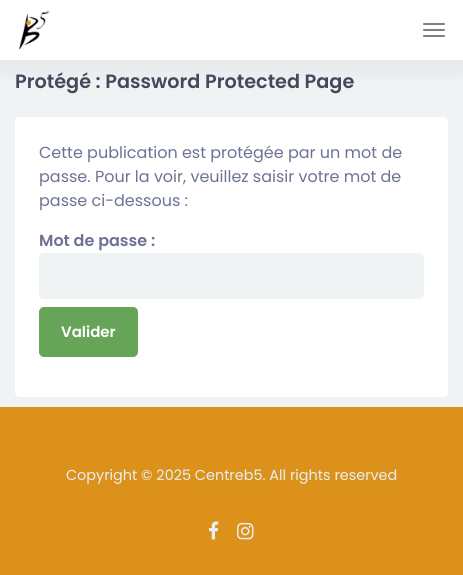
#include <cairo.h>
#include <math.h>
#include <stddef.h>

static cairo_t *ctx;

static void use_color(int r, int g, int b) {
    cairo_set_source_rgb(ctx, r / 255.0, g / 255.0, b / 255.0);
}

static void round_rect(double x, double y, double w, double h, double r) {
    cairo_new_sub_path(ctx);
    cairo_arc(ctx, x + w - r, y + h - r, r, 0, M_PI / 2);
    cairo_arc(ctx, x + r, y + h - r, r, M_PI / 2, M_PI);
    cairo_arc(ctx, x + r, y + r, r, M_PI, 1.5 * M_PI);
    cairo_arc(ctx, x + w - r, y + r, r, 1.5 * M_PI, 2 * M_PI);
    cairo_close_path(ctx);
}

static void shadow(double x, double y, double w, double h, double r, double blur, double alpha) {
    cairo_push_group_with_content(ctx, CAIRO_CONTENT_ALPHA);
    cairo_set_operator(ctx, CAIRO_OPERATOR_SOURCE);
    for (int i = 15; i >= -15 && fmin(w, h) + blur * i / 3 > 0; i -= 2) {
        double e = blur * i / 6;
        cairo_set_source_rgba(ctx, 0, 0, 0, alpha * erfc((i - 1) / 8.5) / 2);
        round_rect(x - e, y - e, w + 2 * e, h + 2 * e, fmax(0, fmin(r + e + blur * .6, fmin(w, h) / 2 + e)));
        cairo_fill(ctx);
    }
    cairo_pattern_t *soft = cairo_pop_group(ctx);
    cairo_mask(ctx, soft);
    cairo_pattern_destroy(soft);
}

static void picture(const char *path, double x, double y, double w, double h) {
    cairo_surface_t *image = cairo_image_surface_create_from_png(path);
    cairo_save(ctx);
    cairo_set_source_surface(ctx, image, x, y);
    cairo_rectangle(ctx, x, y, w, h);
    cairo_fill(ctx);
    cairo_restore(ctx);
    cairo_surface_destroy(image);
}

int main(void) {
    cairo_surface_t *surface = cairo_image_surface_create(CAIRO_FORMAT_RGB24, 463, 575);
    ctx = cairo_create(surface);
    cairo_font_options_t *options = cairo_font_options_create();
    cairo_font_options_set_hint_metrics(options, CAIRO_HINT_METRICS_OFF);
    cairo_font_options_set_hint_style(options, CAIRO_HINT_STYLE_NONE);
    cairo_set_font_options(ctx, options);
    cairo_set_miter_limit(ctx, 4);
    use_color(255, 255, 255);
    cairo_paint(ctx);
    use_color(240, 243, 244);
    cairo_rectangle(ctx, 0, 60, 463, 347);
    cairo_fill(ctx);
    cairo_save(ctx);
    cairo_rectangle(ctx, 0, 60, 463, 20);
    cairo_clip(ctx);
    use_color(82, 63, 105);
    shadow(0, 10, 463, 60, 0, 15, 0.08);
    cairo_restore(ctx);
    picture("img1.png", 19, 10, 31, 40);
    use_color(128, 128, 128);
    round_rect(423, 29, 22, 2, 1);
    cairo_fill(ctx);
    round_rect(423, 23, 22, 2, 1);
    cairo_fill(ctx);
    round_rect(423, 35, 22, 2, 1);
    cairo_fill(ctx);
    cairo_select_font_face(ctx, "Poppins SemiBold", CAIRO_FONT_SLANT_NORMAL, CAIRO_FONT_WEIGHT_NORMAL);
    cairo_set_font_size(ctx, 19.25);
    use_color(72, 70, 91);
    cairo_move_to(ctx, 15, 88);
    cairo_show_text(ctx, "Protégé : Password Protected Page");
    use_color(255, 255, 255);
    round_rect(15, 117, 433, 280, 5);
    cairo_fill(ctx);
    cairo_select_font_face(ctx, "Poppins", CAIRO_FONT_SLANT_NORMAL, CAIRO_FONT_WEIGHT_NORMAL);
    cairo_set_font_size(ctx, 16);
    use_color(108, 114, 147);
    cairo_move_to(ctx, 39, 158);
    cairo_show_text(ctx, "Cette publication est protégée par un mot de");
    cairo_move_to(ctx, 39, 182);
    cairo_show_text(ctx, "passe. Pour la voir, veuillez saisir votre mot de");
    cairo_move_to(ctx, 39, 206);
    cairo_show_text(ctx, "passe ci-dessous :");
    cairo_select_font_face(ctx, "Poppins SemiBold", CAIRO_FONT_SLANT_NORMAL, CAIRO_FONT_WEIGHT_NORMAL);
    cairo_move_to(ctx, 39, 246);
    cairo_show_text(ctx, "Mot de passe :");
    use_color(240, 243, 244);
    round_rect(39, 253, 385, 46, 5);
    cairo_fill(ctx);
    use_color(102, 164, 87);
    round_rect(40, 308, 97, 48, 4);
    cairo_fill_preserve(ctx);
    cairo_stroke(ctx);
    cairo_set_font_size(ctx, 15);
    use_color(255, 255, 255);
    cairo_move_to(ctx, 61, 337);
    cairo_show_text(ctx, "Valider");
    use_color(220, 145, 27);
    cairo_rectangle(ctx, 0, 407, 463, 168);
    cairo_fill(ctx);
    cairo_select_font_face(ctx, "Poppins", CAIRO_FONT_SLANT_NORMAL, CAIRO_FONT_WEIGHT_NORMAL);
    cairo_set_font_size(ctx, 14.4);
    use_color(233, 239, 243);
    cairo_move_to(ctx, 66, 480);
    cairo_show_text(ctx, "Copyright © 2025 Centreb5. All rights reserved");
    picture("img2.png", 209, 521, 10, 19);
    picture("img3.png", 237, 522, 17, 18);
    cairo_surface_write_to_png(surface, "result.png");
    cairo_font_options_destroy(options);
    cairo_destroy(ctx);
    cairo_surface_destroy(surface);
    return 0;
}
